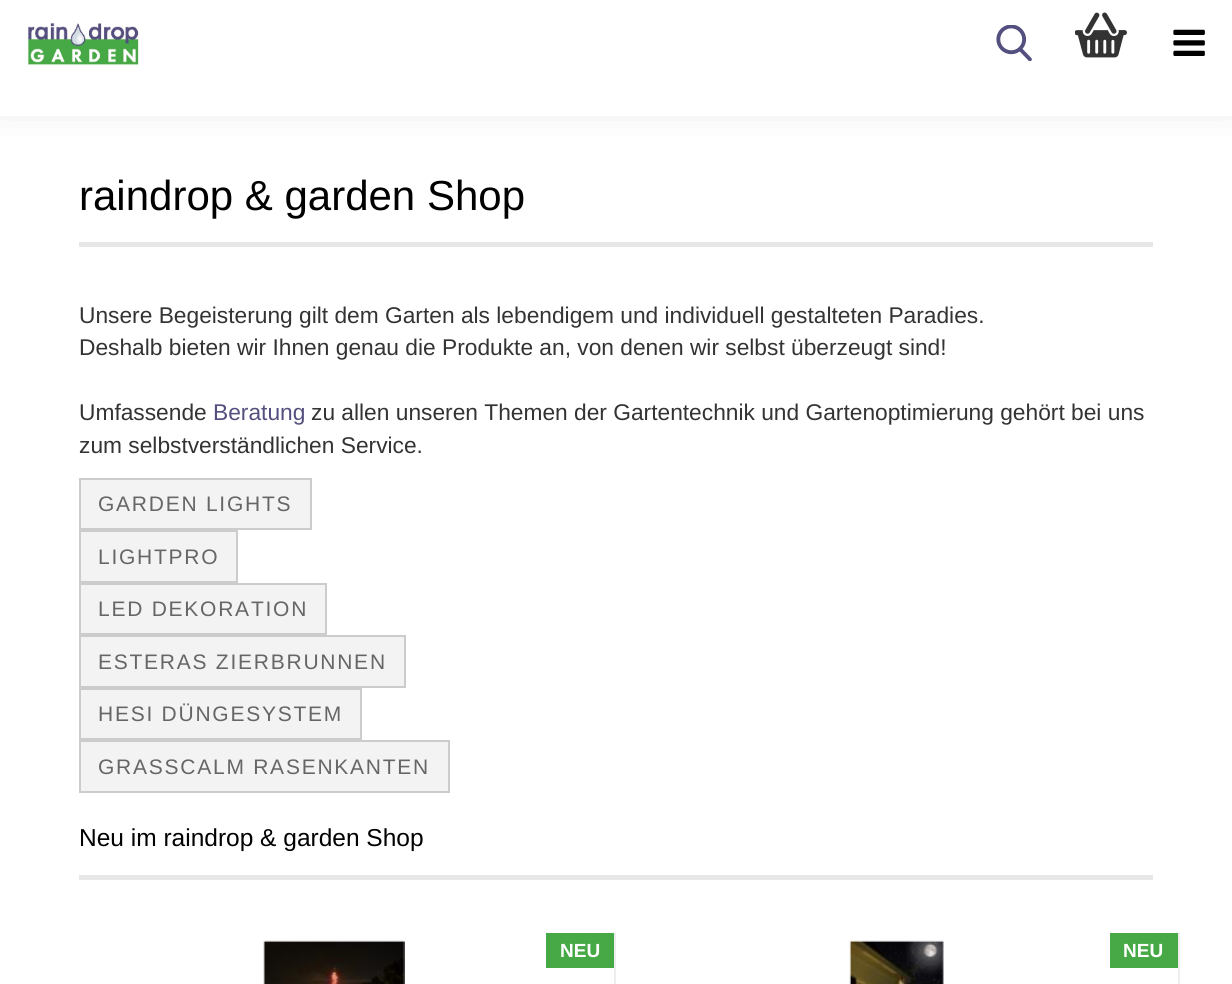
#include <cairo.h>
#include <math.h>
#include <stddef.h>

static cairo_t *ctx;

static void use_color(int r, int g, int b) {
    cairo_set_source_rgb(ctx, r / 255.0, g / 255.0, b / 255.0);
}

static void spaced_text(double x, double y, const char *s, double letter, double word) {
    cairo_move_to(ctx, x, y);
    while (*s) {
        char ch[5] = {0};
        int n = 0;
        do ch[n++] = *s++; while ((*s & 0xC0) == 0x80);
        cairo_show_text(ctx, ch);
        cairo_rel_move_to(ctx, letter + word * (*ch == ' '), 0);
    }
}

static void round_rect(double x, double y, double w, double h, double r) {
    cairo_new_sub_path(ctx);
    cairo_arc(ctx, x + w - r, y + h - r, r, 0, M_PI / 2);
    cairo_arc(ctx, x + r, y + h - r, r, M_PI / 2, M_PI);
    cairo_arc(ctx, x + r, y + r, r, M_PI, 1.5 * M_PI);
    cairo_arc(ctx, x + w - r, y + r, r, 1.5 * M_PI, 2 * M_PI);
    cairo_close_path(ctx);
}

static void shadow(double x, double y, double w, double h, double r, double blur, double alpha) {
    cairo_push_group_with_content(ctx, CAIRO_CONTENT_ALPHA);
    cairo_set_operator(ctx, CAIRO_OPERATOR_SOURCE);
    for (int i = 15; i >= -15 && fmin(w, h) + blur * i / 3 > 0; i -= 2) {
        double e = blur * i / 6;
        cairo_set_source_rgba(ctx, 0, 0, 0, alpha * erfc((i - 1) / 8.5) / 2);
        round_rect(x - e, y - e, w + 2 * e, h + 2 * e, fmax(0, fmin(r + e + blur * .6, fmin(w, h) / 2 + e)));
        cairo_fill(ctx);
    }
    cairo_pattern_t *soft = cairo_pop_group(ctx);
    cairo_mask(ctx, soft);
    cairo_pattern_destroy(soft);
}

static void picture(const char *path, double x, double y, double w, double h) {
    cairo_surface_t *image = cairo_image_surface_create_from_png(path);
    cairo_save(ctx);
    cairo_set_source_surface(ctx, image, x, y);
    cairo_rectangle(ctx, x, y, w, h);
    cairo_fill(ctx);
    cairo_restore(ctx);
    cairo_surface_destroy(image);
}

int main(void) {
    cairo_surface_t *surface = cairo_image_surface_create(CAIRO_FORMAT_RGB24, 1232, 984);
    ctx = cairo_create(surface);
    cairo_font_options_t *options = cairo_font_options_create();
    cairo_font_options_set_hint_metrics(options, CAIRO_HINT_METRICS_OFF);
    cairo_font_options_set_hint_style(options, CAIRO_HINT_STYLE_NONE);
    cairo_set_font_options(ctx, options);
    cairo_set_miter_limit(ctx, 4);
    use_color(255, 255, 255);
    cairo_paint(ctx);
    use_color(0, 0, 0);
    shadow(0, 0, 1232, 88, 0, 22, 0.35);
    use_color(255, 255, 255);
    cairo_rectangle(ctx, 0, 0, 1232, 116);
    cairo_fill(ctx);
    picture("img1.png", 27, 23, 112, 42);
    picture("img2.png", 996, 25, 36, 36);
    picture("img3.png", 1075, 12, 52, 46);
    picture("img4.png", 1173, 29, 32, 27);
    use_color(231, 231, 231);
    cairo_rectangle(ctx, 79, 242, 1074, 5);
    cairo_fill(ctx);
    cairo_select_font_face(ctx, "Liberation Sans", CAIRO_FONT_SLANT_NORMAL, CAIRO_FONT_WEIGHT_NORMAL);
    cairo_set_font_size(ctx, 42);
    use_color(0, 0, 0);
    cairo_move_to(ctx, 79, 210);
    cairo_show_text(ctx, "raindrop & garden Shop");
    cairo_set_font_size(ctx, 22.75);
    use_color(51, 51, 51);
    cairo_move_to(ctx, 79, 323);
    cairo_show_text(ctx, "Unsere Begeisterung gilt dem Garten als lebendigem und individuell gestalteten Paradies.");
    cairo_move_to(ctx, 79, 355);
    cairo_show_text(ctx, "Deshalb bieten wir Ihnen genau die Produkte an, von denen wir selbst überzeugt sind!");
    cairo_move_to(ctx, 79, 420);
    cairo_show_text(ctx, "Umfassende");
    use_color(83, 79, 126);
    cairo_move_to(ctx, 213, 420);
    cairo_show_text(ctx, "Beratung");
    use_color(51, 51, 51);
    cairo_move_to(ctx, 311, 420);
    cairo_show_text(ctx, "zu allen unseren Themen der Gartentechnik und Gartenoptimierung gehört bei uns");
    cairo_move_to(ctx, 79, 453);
    cairo_show_text(ctx, "zum selbstverständlichen Service.");
    use_color(243, 243, 243);
    cairo_rectangle(ctx, 80, 479, 231, 50);
    cairo_fill_preserve(ctx);
    use_color(204, 204, 204);
    cairo_stroke(ctx);
    cairo_set_font_size(ctx, 21);
    use_color(102, 102, 102);
    spaced_text(98, 511, "GARDEN LIGHTS", 1.75, 0);
    use_color(243, 243, 243);
    cairo_rectangle(ctx, 80, 531, 157, 51);
    cairo_fill_preserve(ctx);
    use_color(204, 204, 204);
    cairo_stroke(ctx);
    use_color(102, 102, 102);
    spaced_text(98, 564, "LIGHTPRO", 1.75, 0);
    use_color(243, 243, 243);
    cairo_rectangle(ctx, 80, 584, 246, 50);
    cairo_fill_preserve(ctx);
    use_color(204, 204, 204);
    cairo_stroke(ctx);
    use_color(102, 102, 102);
    spaced_text(98, 616, "LED DEKORATION", 1.75, 0);
    use_color(243, 243, 243);
    cairo_rectangle(ctx, 80, 636, 325, 51);
    cairo_fill_preserve(ctx);
    use_color(204, 204, 204);
    cairo_stroke(ctx);
    use_color(102, 102, 102);
    spaced_text(98, 669, "ESTERAS ZIERBRUNNEN", 1.75, 0);
    use_color(243, 243, 243);
    cairo_rectangle(ctx, 80, 689, 281, 50);
    cairo_fill_preserve(ctx);
    use_color(204, 204, 204);
    cairo_stroke(ctx);
    use_color(102, 102, 102);
    spaced_text(98, 721, "HESI DÜNGESYSTEM", 1.75, 0);
    use_color(243, 243, 243);
    cairo_rectangle(ctx, 80, 741, 369, 51);
    cairo_fill_preserve(ctx);
    use_color(204, 204, 204);
    cairo_stroke(ctx);
    use_color(102, 102, 102);
    spaced_text(98, 774, "GRASSCALM RASENKANTEN", 1.75, 0);
    use_color(231, 231, 231);
    cairo_rectangle(ctx, 79, 875, 1074, 5);
    cairo_fill(ctx);
    cairo_set_font_size(ctx, 24.5);
    use_color(0, 0, 0);
    cairo_move_to(ctx, 79, 846);
    cairo_show_text(ctx, "Neu im raindrop & garden Shop");
    use_color(238, 238, 238);
    cairo_rectangle(ctx, 614, 933, 2, 51);
    cairo_fill(ctx);
    picture("img5.png", 263, 940, 142, 44);
    use_color(71, 169, 70);
    cairo_rectangle(ctx, 546, 933, 68, 35);
    cairo_fill(ctx);
    cairo_select_font_face(ctx, "Liberation Sans", CAIRO_FONT_SLANT_NORMAL, CAIRO_FONT_WEIGHT_BOLD);
    cairo_set_font_size(ctx, 19);
    use_color(255, 255, 255);
    cairo_move_to(ctx, 560, 957);
    cairo_show_text(ctx, "NEU");
    use_color(238, 238, 238);
    cairo_rectangle(ctx, 1178, 933, 2, 51);
    cairo_fill(ctx);
    picture("img6.png", 849, 940, 95, 44);
    use_color(71, 169, 70);
    cairo_rectangle(ctx, 1110, 933, 68, 35);
    cairo_fill(ctx);
    use_color(255, 255, 255);
    cairo_move_to(ctx, 1123, 957);
    cairo_show_text(ctx, "NEU");
    cairo_surface_write_to_png(surface, "result.png");
    cairo_font_options_destroy(options);
    cairo_destroy(ctx);
    cairo_surface_destroy(surface);
    return 0;
}
